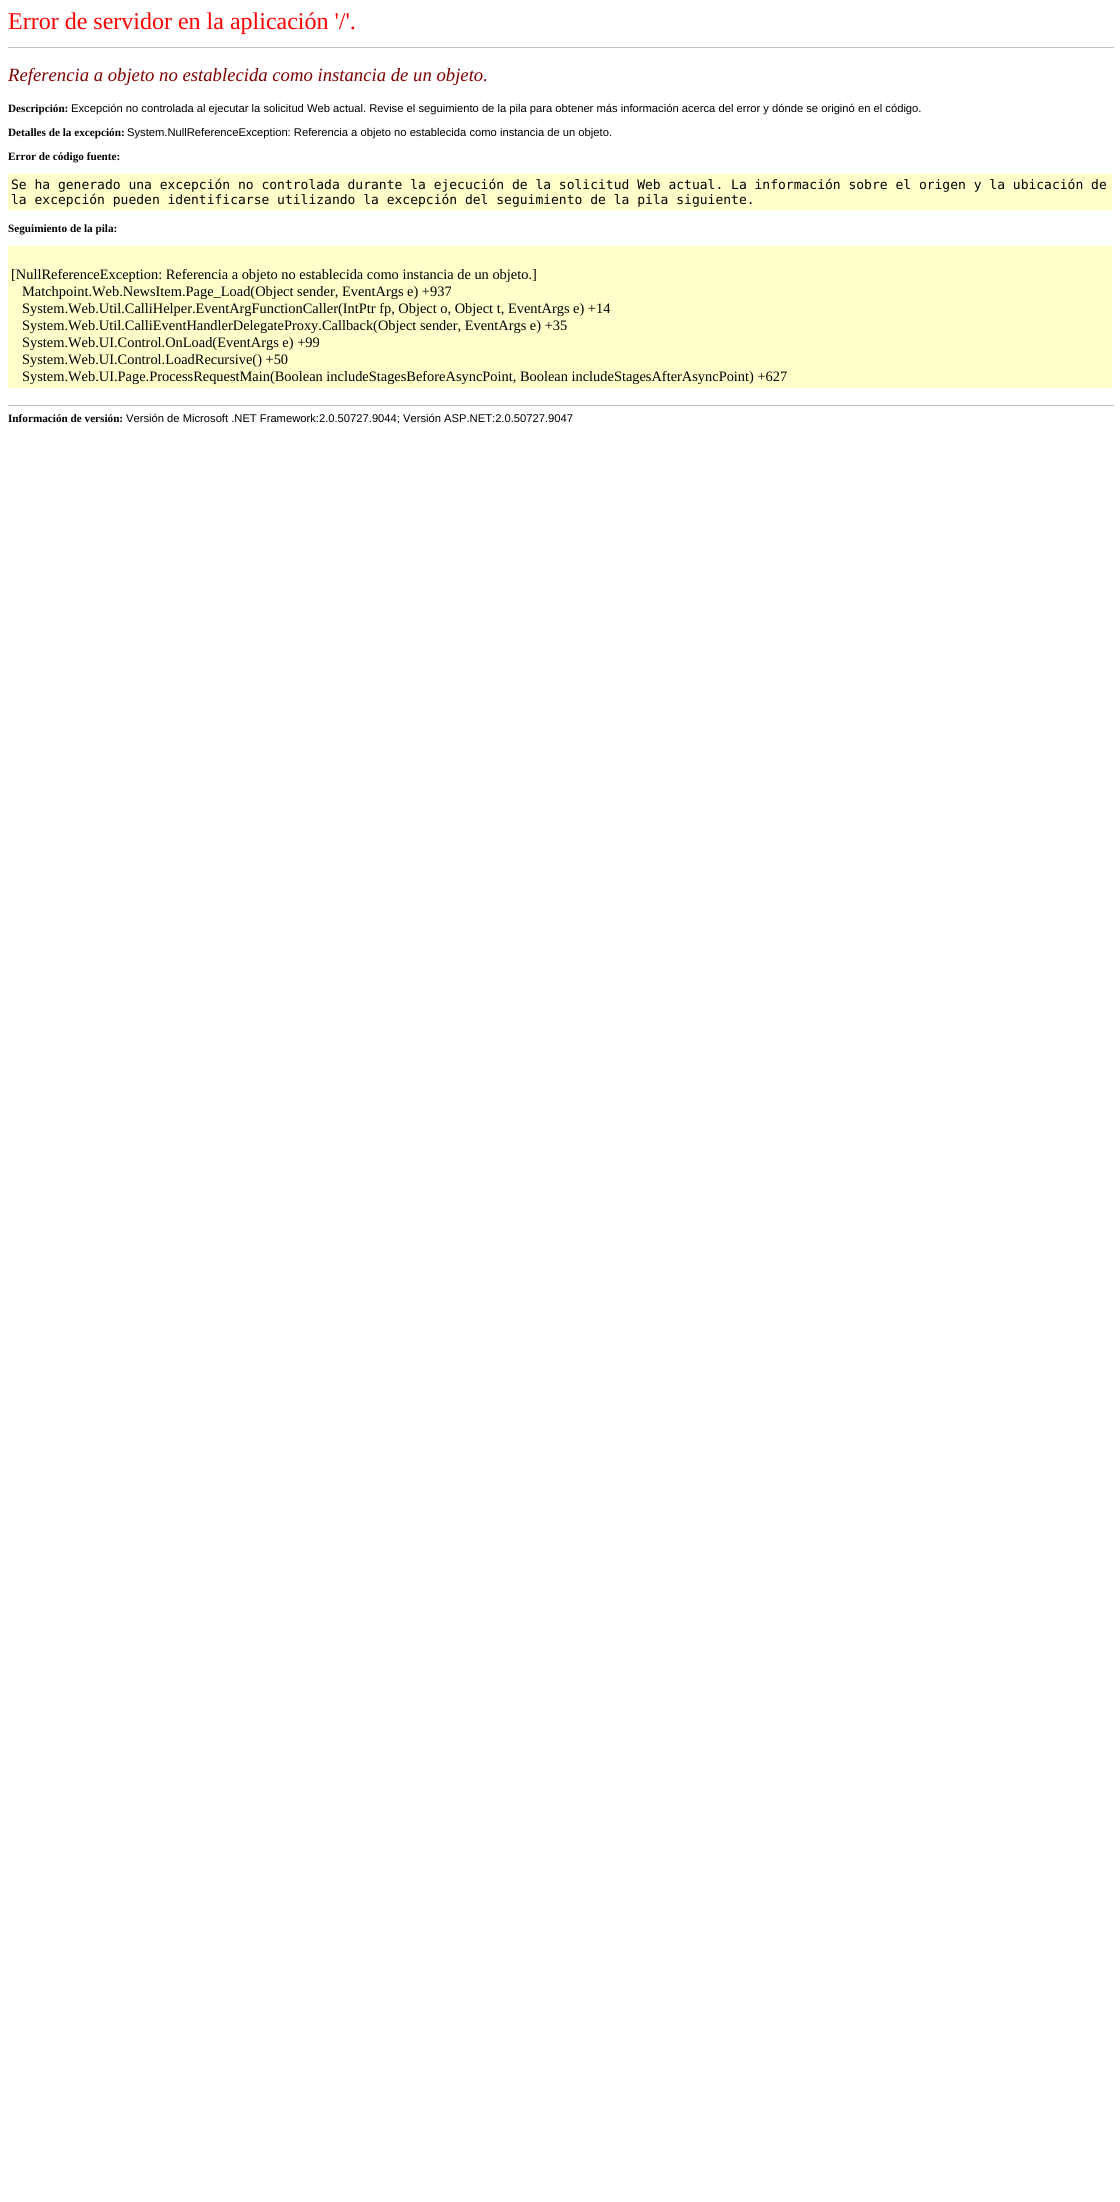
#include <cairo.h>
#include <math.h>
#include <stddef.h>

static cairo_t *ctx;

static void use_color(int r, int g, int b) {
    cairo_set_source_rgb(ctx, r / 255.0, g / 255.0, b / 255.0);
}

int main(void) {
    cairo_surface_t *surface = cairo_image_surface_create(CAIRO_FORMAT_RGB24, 1120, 2202);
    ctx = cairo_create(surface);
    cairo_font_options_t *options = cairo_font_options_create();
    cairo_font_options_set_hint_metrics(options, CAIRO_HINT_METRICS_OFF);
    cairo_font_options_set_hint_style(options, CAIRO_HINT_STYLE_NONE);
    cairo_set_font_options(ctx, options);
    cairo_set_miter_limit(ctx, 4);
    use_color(255, 255, 255);
    cairo_paint(ctx);
    cairo_select_font_face(ctx, "Liberation Serif", CAIRO_FONT_SLANT_NORMAL, CAIRO_FONT_WEIGHT_NORMAL);
    cairo_set_font_size(ctx, 24);
    use_color(255, 0, 0);
    cairo_move_to(ctx, 8, 29);
    cairo_show_text(ctx, "Error de servidor en la aplicación '/'.");
    use_color(192, 192, 192);
    cairo_rectangle(ctx, 8, 47, 1106, 1);
    cairo_fill(ctx);
    cairo_select_font_face(ctx, "Liberation Serif", CAIRO_FONT_SLANT_ITALIC, CAIRO_FONT_WEIGHT_NORMAL);
    cairo_set_font_size(ctx, 18.7);
    use_color(128, 0, 0);
    cairo_move_to(ctx, 8, 81);
    cairo_show_text(ctx, "Referencia a objeto no establecida como instancia de un objeto.");
    cairo_select_font_face(ctx, "Liberation Serif", CAIRO_FONT_SLANT_NORMAL, CAIRO_FONT_WEIGHT_BOLD);
    cairo_set_font_size(ctx, 11.2);
    use_color(0, 0, 0);
    cairo_move_to(ctx, 8, 112);
    cairo_show_text(ctx, "Descripción:");
    cairo_select_font_face(ctx, "Liberation Sans", CAIRO_FONT_SLANT_NORMAL, CAIRO_FONT_WEIGHT_NORMAL);
    cairo_move_to(ctx, 71, 112);
    cairo_show_text(ctx, "Excepción no controlada al ejecutar la solicitud Web actual. Revise el seguimiento de la pila para obtener más información acerca del error y dónde se originó en el código.");
    cairo_select_font_face(ctx, "Liberation Serif", CAIRO_FONT_SLANT_NORMAL, CAIRO_FONT_WEIGHT_BOLD);
    cairo_move_to(ctx, 8, 136);
    cairo_show_text(ctx, "Detalles de la excepción:");
    cairo_select_font_face(ctx, "Liberation Sans", CAIRO_FONT_SLANT_NORMAL, CAIRO_FONT_WEIGHT_NORMAL);
    cairo_move_to(ctx, 127, 136);
    cairo_show_text(ctx, "System.NullReferenceException: Referencia a objeto no establecida como instancia de un objeto.");
    cairo_select_font_face(ctx, "Liberation Serif", CAIRO_FONT_SLANT_NORMAL, CAIRO_FONT_WEIGHT_BOLD);
    cairo_move_to(ctx, 8, 160);
    cairo_show_text(ctx, "Error de código fuente:");
    use_color(255, 255, 204);
    cairo_rectangle(ctx, 8, 174, 1104, 36);
    cairo_fill(ctx);
    cairo_select_font_face(ctx, "DejaVu Sans Mono", CAIRO_FONT_SLANT_NORMAL, CAIRO_FONT_WEIGHT_NORMAL);
    cairo_set_font_size(ctx, 13);
    use_color(0, 0, 0);
    cairo_move_to(ctx, 11, 189);
    cairo_show_text(ctx, "Se ha generado una excepción no controlada durante la ejecución de la solicitud Web actual. La información sobre el origen y la ubicación de");
    cairo_move_to(ctx, 11, 204);
    cairo_show_text(ctx, "la excepción pueden identificarse utilizando la excepción del seguimiento de la pila siguiente.");
    cairo_select_font_face(ctx, "Liberation Serif", CAIRO_FONT_SLANT_NORMAL, CAIRO_FONT_WEIGHT_BOLD);
    cairo_set_font_size(ctx, 11.2);
    cairo_move_to(ctx, 8, 232);
    cairo_show_text(ctx, "Seguimiento de la pila:");
    use_color(255, 255, 204);
    cairo_rectangle(ctx, 8, 246, 1104, 142);
    cairo_fill(ctx);
    cairo_select_font_face(ctx, "Liberation Serif", CAIRO_FONT_SLANT_NORMAL, CAIRO_FONT_WEIGHT_NORMAL);
    cairo_set_font_size(ctx, 14.4);
    use_color(0, 0, 0);
    cairo_move_to(ctx, 11, 279);
    cairo_show_text(ctx, "[NullReferenceException: Referencia a objeto no establecida como instancia de un objeto.]");
    cairo_move_to(ctx, 22, 296);
    cairo_show_text(ctx, "Matchpoint.Web.NewsItem.Page_Load(Object sender, EventArgs e) +937");
    cairo_move_to(ctx, 22, 313);
    cairo_show_text(ctx, "System.Web.Util.CalliHelper.EventArgFunctionCaller(IntPtr fp, Object o, Object t, EventArgs e) +14");
    cairo_move_to(ctx, 22, 330);
    cairo_show_text(ctx, "System.Web.Util.CalliEventHandlerDelegateProxy.Callback(Object sender, EventArgs e) +35");
    cairo_move_to(ctx, 22, 347);
    cairo_show_text(ctx, "System.Web.UI.Control.OnLoad(EventArgs e) +99");
    cairo_move_to(ctx, 22, 364);
    cairo_show_text(ctx, "System.Web.UI.Control.LoadRecursive() +50");
    cairo_move_to(ctx, 22, 381);
    cairo_show_text(ctx, "System.Web.UI.Page.ProcessRequestMain(Boolean includeStagesBeforeAsyncPoint, Boolean includeStagesAfterAsyncPoint) +627");
    use_color(192, 192, 192);
    cairo_rectangle(ctx, 8, 405, 1106, 1);
    cairo_fill(ctx);
    cairo_select_font_face(ctx, "Liberation Serif", CAIRO_FONT_SLANT_NORMAL, CAIRO_FONT_WEIGHT_BOLD);
    cairo_set_font_size(ctx, 11.2);
    use_color(0, 0, 0);
    cairo_move_to(ctx, 8, 422);
    cairo_show_text(ctx, "Información de versión:");
    cairo_select_font_face(ctx, "Liberation Sans", CAIRO_FONT_SLANT_NORMAL, CAIRO_FONT_WEIGHT_NORMAL);
    cairo_move_to(ctx, 126, 422);
    cairo_show_text(ctx, "Versión de Microsoft .NET Framework:2.0.50727.9044; Versión ASP.NET:2.0.50727.9047");
    cairo_surface_write_to_png(surface, "result.png");
    cairo_font_options_destroy(options);
    cairo_destroy(ctx);
    cairo_surface_destroy(surface);
    return 0;
}
